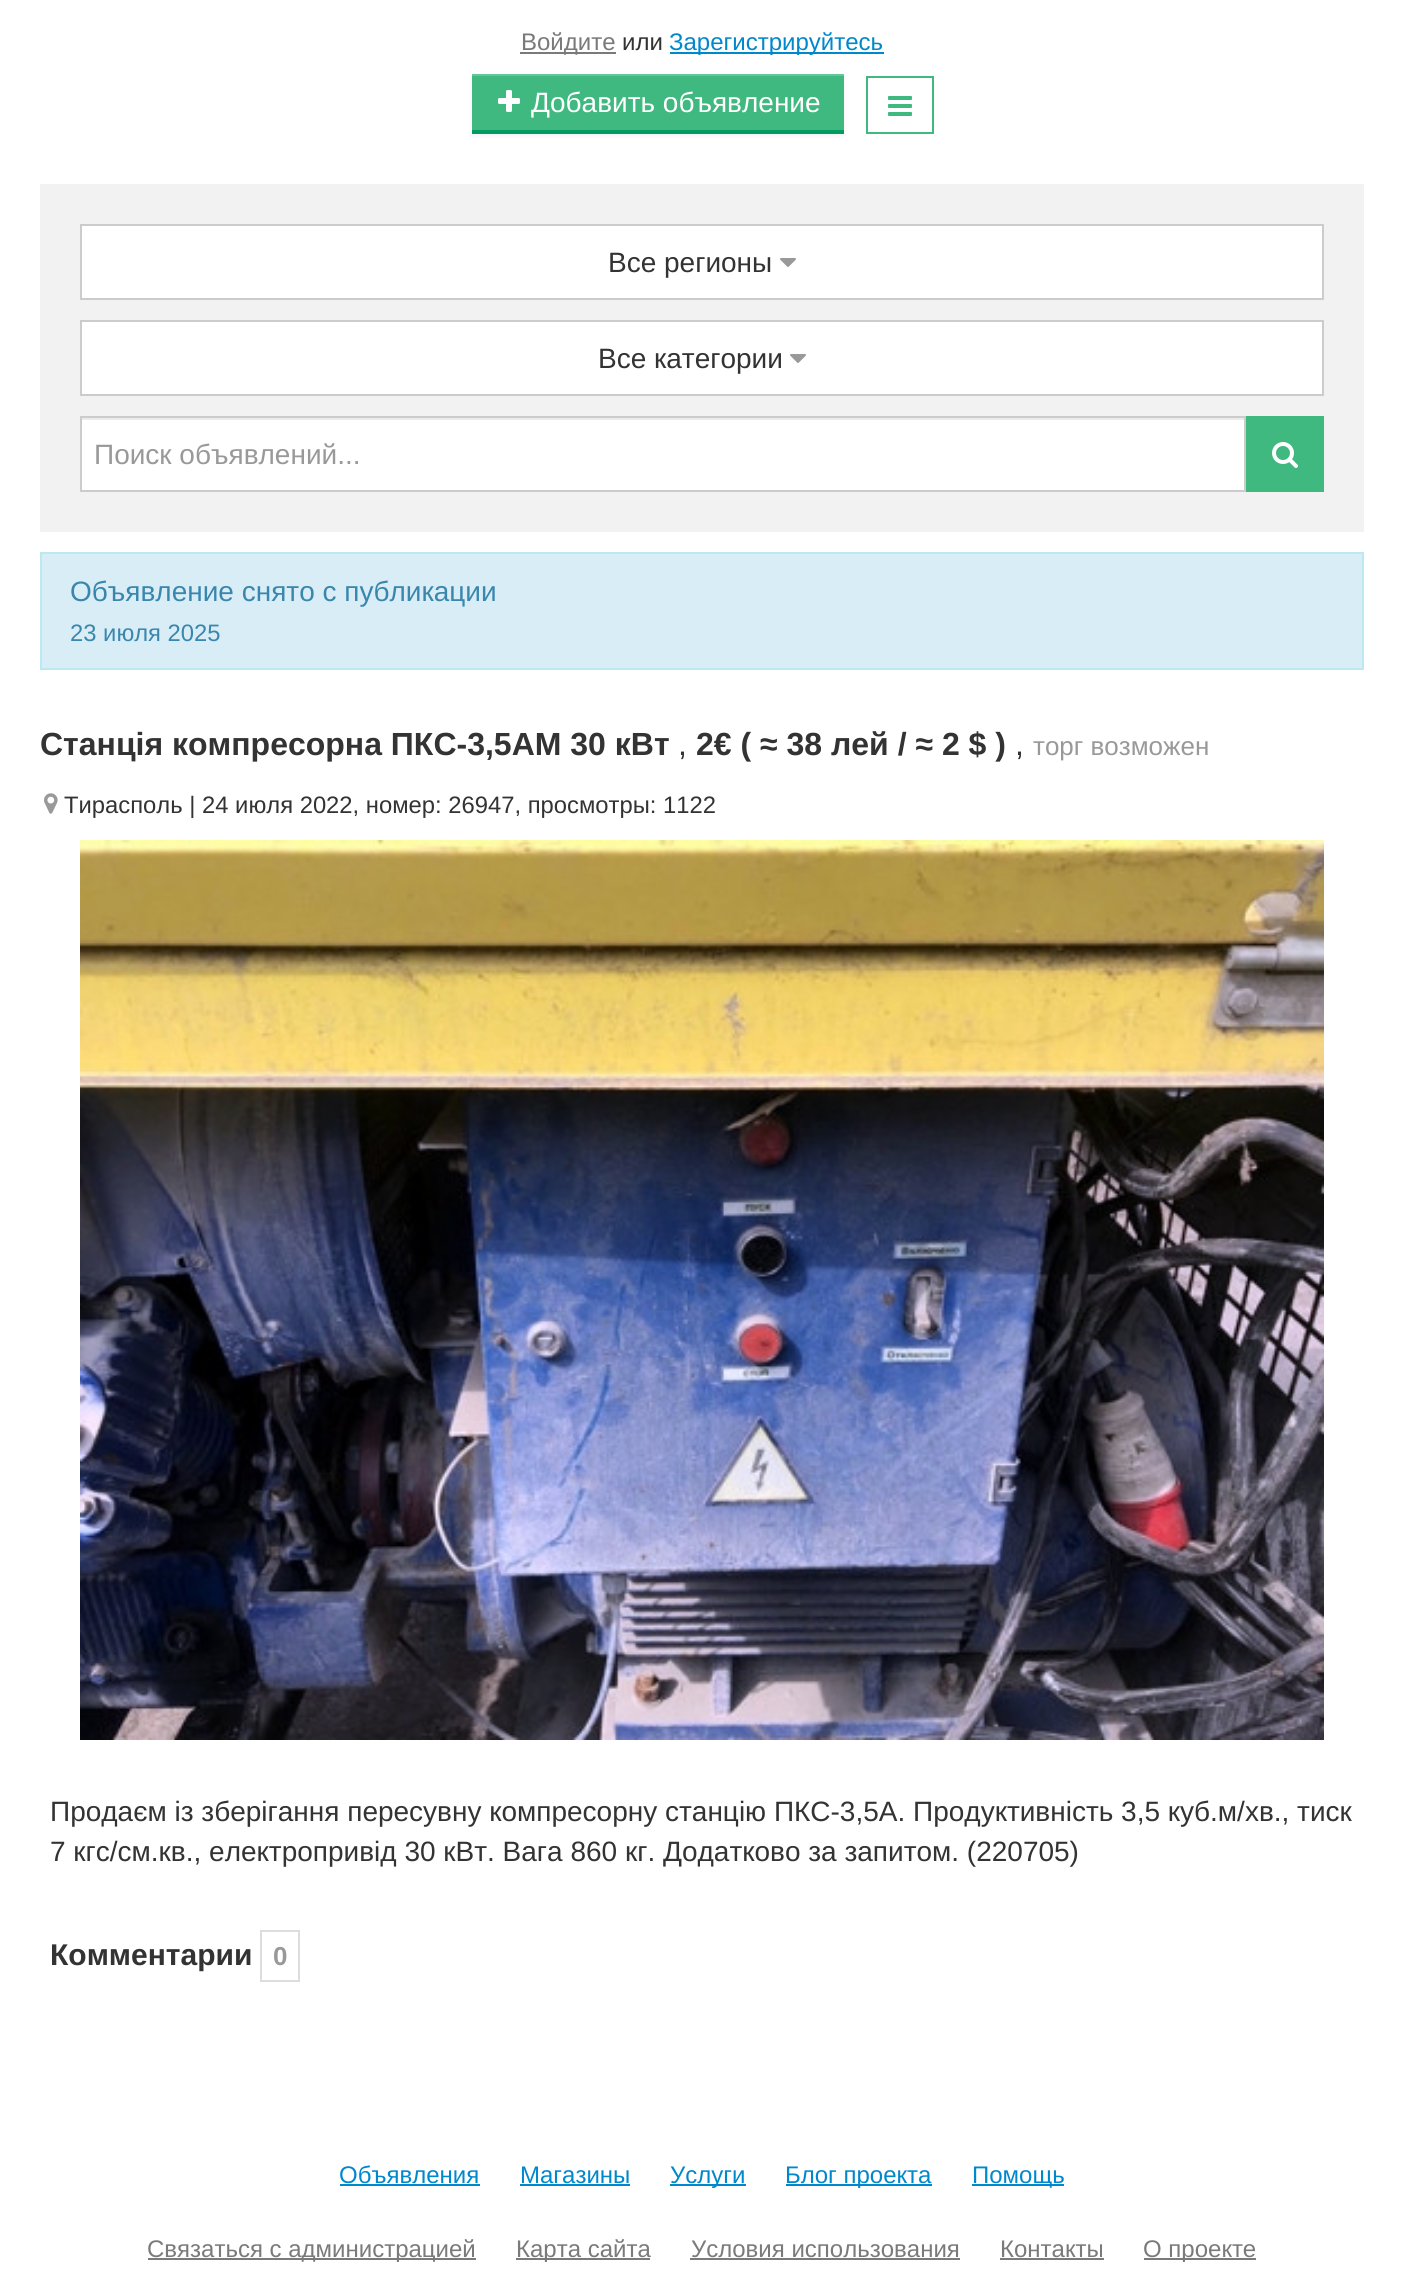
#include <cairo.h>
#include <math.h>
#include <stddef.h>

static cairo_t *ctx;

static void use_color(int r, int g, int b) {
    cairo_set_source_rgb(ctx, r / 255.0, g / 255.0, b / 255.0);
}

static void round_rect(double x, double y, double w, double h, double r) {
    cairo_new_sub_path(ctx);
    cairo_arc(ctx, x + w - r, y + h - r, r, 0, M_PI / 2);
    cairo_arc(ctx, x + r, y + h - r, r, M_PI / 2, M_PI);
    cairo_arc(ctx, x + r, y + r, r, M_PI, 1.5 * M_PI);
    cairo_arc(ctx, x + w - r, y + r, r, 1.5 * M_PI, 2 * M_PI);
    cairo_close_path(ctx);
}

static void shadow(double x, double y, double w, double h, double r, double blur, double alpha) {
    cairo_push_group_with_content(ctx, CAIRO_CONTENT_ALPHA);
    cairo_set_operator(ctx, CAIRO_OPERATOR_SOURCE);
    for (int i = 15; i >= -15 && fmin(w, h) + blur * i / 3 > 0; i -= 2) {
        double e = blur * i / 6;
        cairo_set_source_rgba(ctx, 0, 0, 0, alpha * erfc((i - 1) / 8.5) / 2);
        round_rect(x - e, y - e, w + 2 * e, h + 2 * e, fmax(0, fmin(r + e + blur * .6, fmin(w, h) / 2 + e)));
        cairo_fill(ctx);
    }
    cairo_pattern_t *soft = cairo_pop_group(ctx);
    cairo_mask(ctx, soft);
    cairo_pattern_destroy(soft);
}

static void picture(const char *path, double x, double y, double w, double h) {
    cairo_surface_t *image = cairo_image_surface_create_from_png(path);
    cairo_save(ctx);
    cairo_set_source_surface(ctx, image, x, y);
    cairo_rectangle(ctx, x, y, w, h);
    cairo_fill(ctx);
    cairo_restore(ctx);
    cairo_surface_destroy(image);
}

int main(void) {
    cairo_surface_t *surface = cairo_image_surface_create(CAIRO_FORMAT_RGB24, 1403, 2271);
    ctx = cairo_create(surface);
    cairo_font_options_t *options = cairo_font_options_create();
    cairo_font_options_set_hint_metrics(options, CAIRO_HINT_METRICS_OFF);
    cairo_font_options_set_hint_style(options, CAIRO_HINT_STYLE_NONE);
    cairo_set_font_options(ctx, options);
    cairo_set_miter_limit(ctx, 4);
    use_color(255, 255, 255);
    cairo_paint(ctx);
    use_color(122, 122, 122);
    cairo_rectangle(ctx, 520, 52, 96, 2);
    cairo_fill(ctx);
    cairo_select_font_face(ctx, "Liberation Sans", CAIRO_FONT_SLANT_NORMAL, CAIRO_FONT_WEIGHT_NORMAL);
    cairo_set_font_size(ctx, 24);
    cairo_move_to(ctx, 521, 50);
    cairo_show_text(ctx, "Войдите");
    use_color(51, 51, 51);
    cairo_move_to(ctx, 622, 50);
    cairo_show_text(ctx, "или");
    use_color(0, 136, 204);
    cairo_rectangle(ctx, 670, 52, 214, 2);
    cairo_fill(ctx);
    cairo_move_to(ctx, 669, 50);
    cairo_show_text(ctx, "Зарегистрируйтесь");
    use_color(0, 0, 0);
    shadow(472, 76, 372, 60, 0, 2, 0.05);
    use_color(63, 185, 128);
    cairo_rectangle(ctx, 472, 76, 372, 54);
    cairo_fill(ctx);
    use_color(101, 199, 153);
    cairo_rectangle(ctx, 472, 74, 372, 2);
    cairo_fill(ctx);
    use_color(0, 156, 98);
    cairo_rectangle(ctx, 472, 130, 372, 4);
    cairo_fill(ctx);
    picture("img1.png", 498, 90, 22, 22);
    cairo_set_font_size(ctx, 28);
    use_color(255, 255, 255);
    cairo_move_to(ctx, 531, 112);
    cairo_show_text(ctx, "Добавить объявление");
    cairo_rectangle(ctx, 867, 77, 66, 56);
    use_color(63, 185, 128);
    cairo_stroke(ctx);
    picture("img2.png", 888, 96, 24, 20);
    use_color(242, 242, 242);
    cairo_rectangle(ctx, 40, 184, 1324, 348);
    cairo_fill(ctx);
    use_color(255, 255, 255);
    cairo_rectangle(ctx, 81, 225, 1242, 74);
    cairo_fill_preserve(ctx);
    use_color(204, 204, 204);
    cairo_stroke(ctx);
    use_color(51, 51, 51);
    cairo_move_to(ctx, 608, 272);
    cairo_show_text(ctx, "Все регионы");
    picture("img3.png", 780, 258, 16, 9);
    use_color(255, 255, 255);
    cairo_rectangle(ctx, 81, 321, 1242, 74);
    cairo_fill_preserve(ctx);
    use_color(204, 204, 204);
    cairo_stroke(ctx);
    use_color(51, 51, 51);
    cairo_move_to(ctx, 598, 368);
    cairo_show_text(ctx, "Все категории");
    picture("img3.png", 790, 354, 16, 9);
    use_color(255, 255, 255);
    cairo_rectangle(ctx, 82, 420, 1162, 70);
    cairo_fill(ctx);
    use_color(236, 236, 236);
    cairo_rectangle(ctx, 82, 418, 1162, 2);
    cairo_fill(ctx);
    cairo_rectangle(ctx, 81, 417, 1164, 74);
    use_color(204, 204, 204);
    cairo_stroke(ctx);
    use_color(153, 153, 153);
    cairo_move_to(ctx, 94, 464);
    cairo_show_text(ctx, "Поиск объявлений...");
    use_color(63, 185, 128);
    cairo_rectangle(ctx, 1246, 416, 78, 76);
    cairo_fill(ctx);
    picture("img4.png", 1272, 442, 26, 26);
    use_color(217, 237, 247);
    cairo_rectangle(ctx, 41, 553, 1322, 116);
    cairo_fill_preserve(ctx);
    use_color(188, 232, 241);
    cairo_stroke(ctx);
    use_color(58, 135, 173);
    cairo_move_to(ctx, 70, 601);
    cairo_show_text(ctx, "Объявление снято с публикации");
    cairo_set_font_size(ctx, 23.8);
    cairo_move_to(ctx, 70, 641);
    cairo_show_text(ctx, "23 июля 2025");
    cairo_select_font_face(ctx, "Liberation Sans", CAIRO_FONT_SLANT_NORMAL, CAIRO_FONT_WEIGHT_BOLD);
    cairo_set_font_size(ctx, 32);
    use_color(51, 51, 51);
    cairo_move_to(ctx, 40, 755);
    cairo_show_text(ctx, "Станція компресорна ПКС-3,5АМ 30 кВт");
    cairo_select_font_face(ctx, "Liberation Sans", CAIRO_FONT_SLANT_NORMAL, CAIRO_FONT_WEIGHT_NORMAL);
    cairo_move_to(ctx, 678, 755);
    cairo_show_text(ctx, ",");
    cairo_select_font_face(ctx, "Liberation Sans", CAIRO_FONT_SLANT_NORMAL, CAIRO_FONT_WEIGHT_BOLD);
    cairo_move_to(ctx, 696, 755);
    cairo_show_text(ctx, "2€ ( ≈ 38 лей / ≈ 2 $ )");
    cairo_select_font_face(ctx, "Liberation Sans", CAIRO_FONT_SLANT_NORMAL, CAIRO_FONT_WEIGHT_NORMAL);
    cairo_move_to(ctx, 1015, 755);
    cairo_show_text(ctx, ",");
    cairo_set_font_size(ctx, 26);
    use_color(153, 153, 153);
    cairo_move_to(ctx, 1033, 755);
    cairo_show_text(ctx, "торг возможен");
    picture("img5.png", 44, 793, 14, 21);
    cairo_set_font_size(ctx, 23.8);
    use_color(51, 51, 51);
    cairo_move_to(ctx, 64, 813);
    cairo_show_text(ctx, "Тирасполь | 24 июля 2022, номер: 26947, просмотры: 1122");
    picture("img6.png", 80, 840, 1244, 900);
    cairo_set_font_size(ctx, 28);
    cairo_move_to(ctx, 50, 1821);
    cairo_show_text(ctx, "Продаєм із зберігання пересувну компресорну станцію ПКС-3,5А. Продуктивність 3,5 куб.м/хв., тиск");
    cairo_move_to(ctx, 50, 1861);
    cairo_show_text(ctx, "7 кгс/см.кв., електропривід 30 кВт. Вага 860 кг. Додатково за запитом. (220705)");
    cairo_select_font_face(ctx, "Liberation Sans", CAIRO_FONT_SLANT_NORMAL, CAIRO_FONT_WEIGHT_BOLD);
    cairo_set_font_size(ctx, 30);
    cairo_move_to(ctx, 50, 1965);
    cairo_show_text(ctx, "Комментарии");
    cairo_rectangle(ctx, 261, 1931, 38, 50);
    use_color(221, 221, 221);
    cairo_stroke(ctx);
    cairo_set_font_size(ctx, 26);
    use_color(153, 153, 153);
    cairo_move_to(ctx, 273, 1965);
    cairo_show_text(ctx, "0");
    cairo_select_font_face(ctx, "Liberation Sans", CAIRO_FONT_SLANT_NORMAL, CAIRO_FONT_WEIGHT_NORMAL);
    cairo_set_font_size(ctx, 24);
    use_color(0, 136, 204);
    cairo_move_to(ctx, 339, 2183);
    cairo_show_text(ctx, "Объявления");
    cairo_rectangle(ctx, 340, 2184, 140, 2);
    cairo_fill(ctx);
    cairo_move_to(ctx, 520, 2183);
    cairo_show_text(ctx, "Магазины");
    cairo_rectangle(ctx, 520, 2184, 110, 2);
    cairo_fill(ctx);
    cairo_rectangle(ctx, 670, 2184, 76, 2);
    cairo_fill(ctx);
    cairo_move_to(ctx, 670, 2183);
    cairo_show_text(ctx, "Услуги");
    cairo_rectangle(ctx, 786, 2184, 146, 2);
    cairo_fill(ctx);
    cairo_move_to(ctx, 785, 2183);
    cairo_show_text(ctx, "Блог проекта");
    cairo_rectangle(ctx, 972, 2184, 92, 2);
    cairo_fill(ctx);
    cairo_move_to(ctx, 972, 2183);
    cairo_show_text(ctx, "Помощь");
    use_color(122, 122, 122);
    cairo_rectangle(ctx, 148, 2258, 328, 2);
    cairo_fill(ctx);
    cairo_move_to(ctx, 147, 2257);
    cairo_show_text(ctx, "Связаться с администрацией");
    cairo_rectangle(ctx, 516, 2258, 134, 2);
    cairo_fill(ctx);
    cairo_move_to(ctx, 516, 2257);
    cairo_show_text(ctx, "Карта сайта");
    cairo_move_to(ctx, 691, 2257);
    cairo_show_text(ctx, "Условия использования");
    cairo_rectangle(ctx, 690, 2258, 270, 2);
    cairo_fill(ctx);
    cairo_move_to(ctx, 1000, 2257);
    cairo_show_text(ctx, "Контакты");
    cairo_rectangle(ctx, 1000, 2258, 104, 2);
    cairo_fill(ctx);
    cairo_rectangle(ctx, 1144, 2258, 112, 2);
    cairo_fill(ctx);
    cairo_move_to(ctx, 1143, 2257);
    cairo_show_text(ctx, "О проекте");
    cairo_surface_write_to_png(surface, "result.png");
    cairo_font_options_destroy(options);
    cairo_destroy(ctx);
    cairo_surface_destroy(surface);
    return 0;
}
